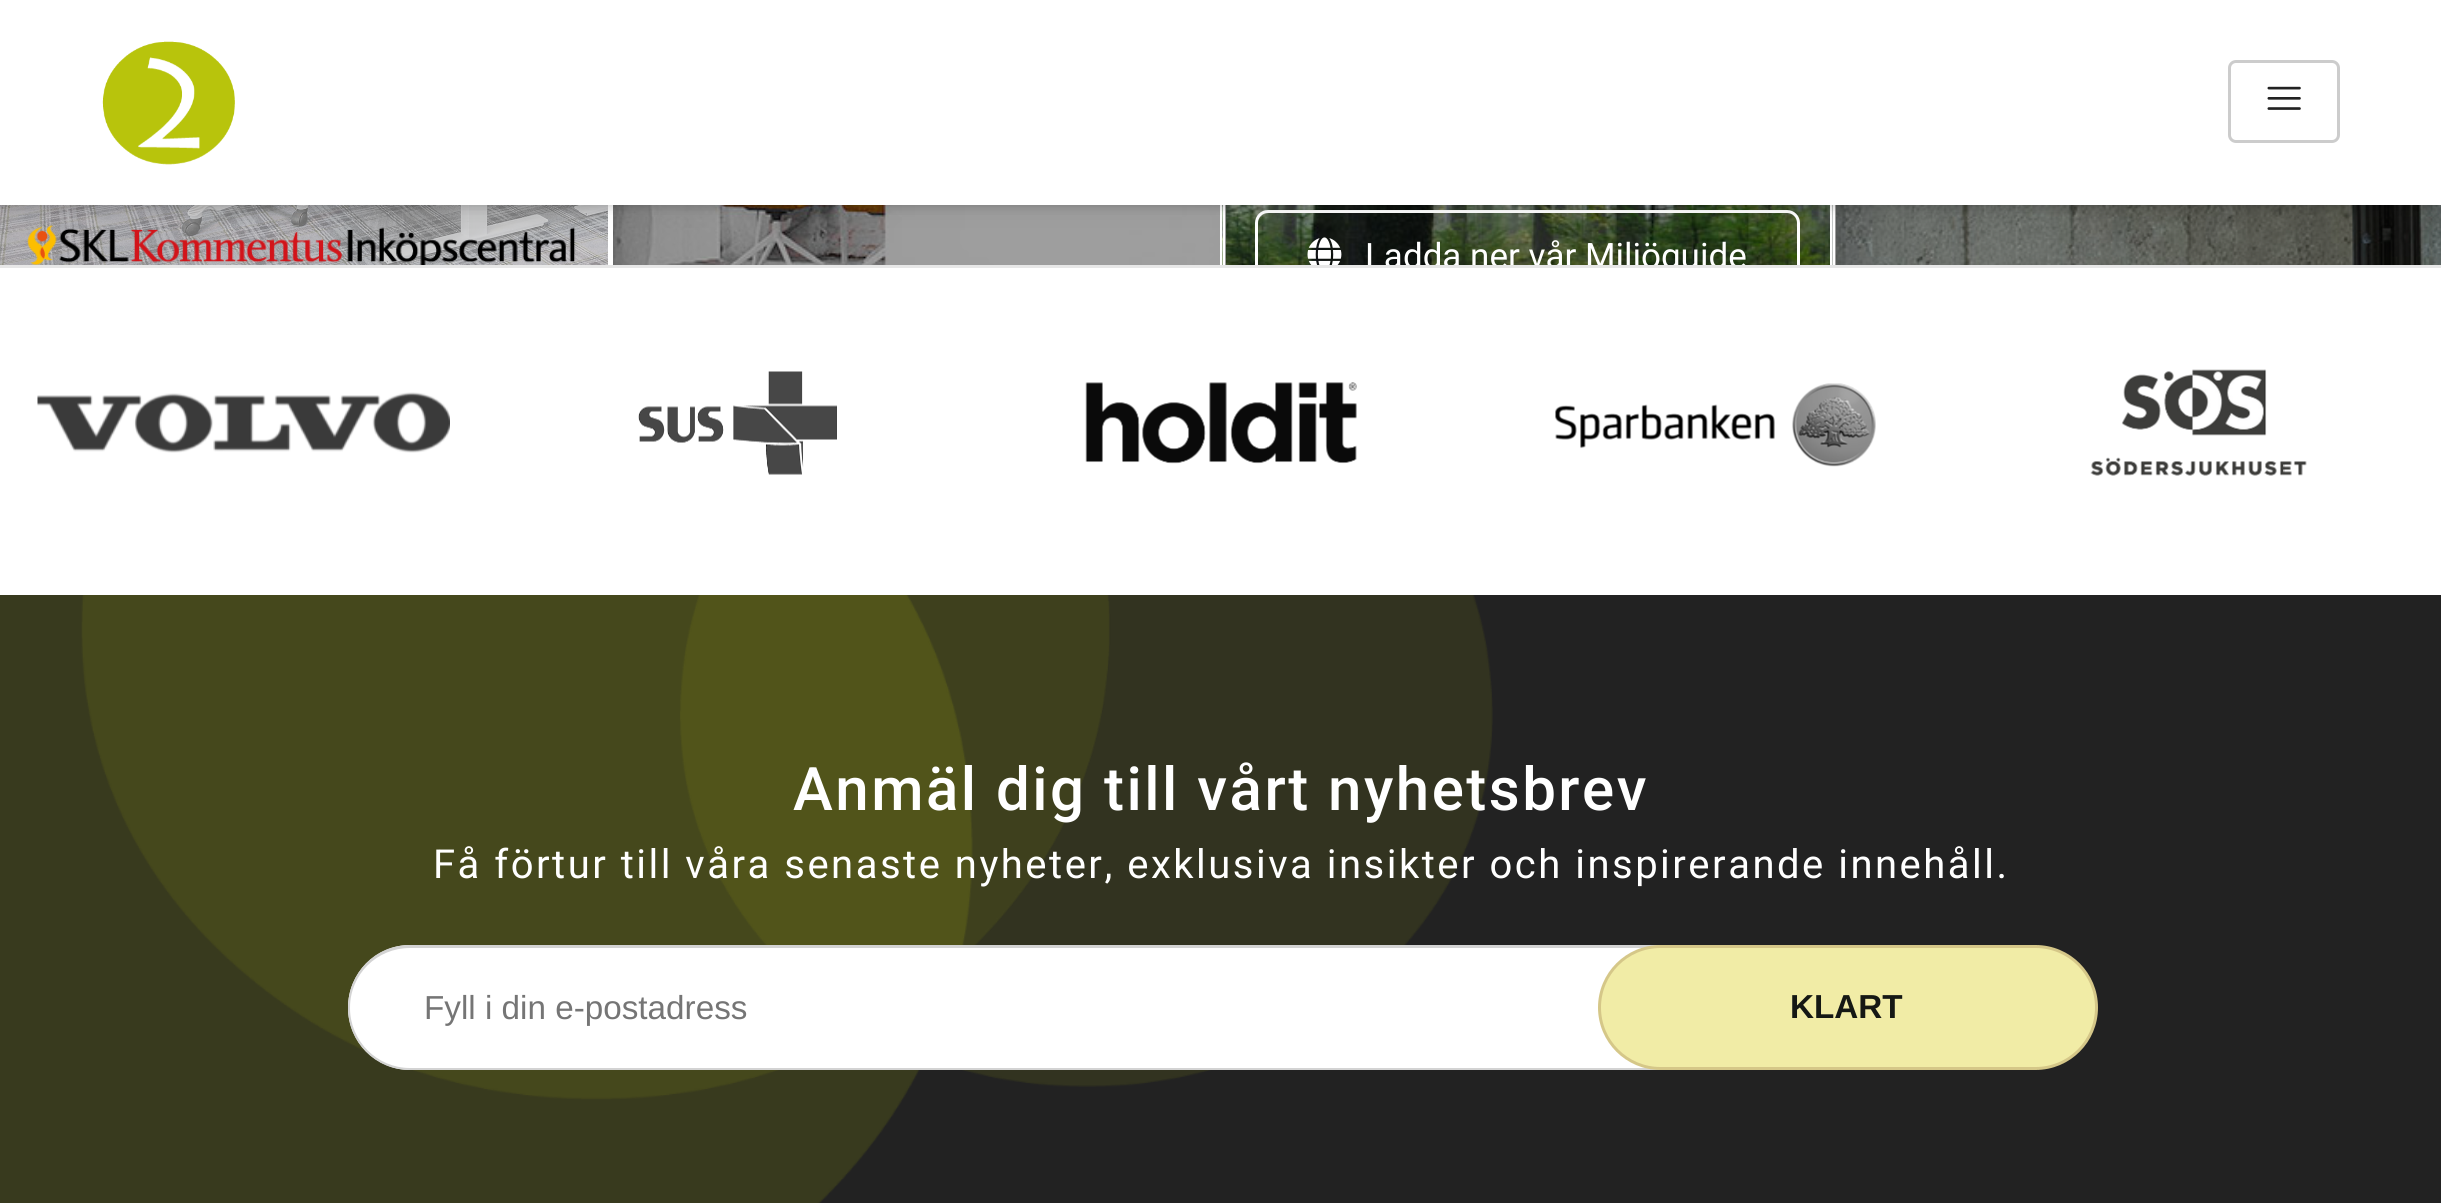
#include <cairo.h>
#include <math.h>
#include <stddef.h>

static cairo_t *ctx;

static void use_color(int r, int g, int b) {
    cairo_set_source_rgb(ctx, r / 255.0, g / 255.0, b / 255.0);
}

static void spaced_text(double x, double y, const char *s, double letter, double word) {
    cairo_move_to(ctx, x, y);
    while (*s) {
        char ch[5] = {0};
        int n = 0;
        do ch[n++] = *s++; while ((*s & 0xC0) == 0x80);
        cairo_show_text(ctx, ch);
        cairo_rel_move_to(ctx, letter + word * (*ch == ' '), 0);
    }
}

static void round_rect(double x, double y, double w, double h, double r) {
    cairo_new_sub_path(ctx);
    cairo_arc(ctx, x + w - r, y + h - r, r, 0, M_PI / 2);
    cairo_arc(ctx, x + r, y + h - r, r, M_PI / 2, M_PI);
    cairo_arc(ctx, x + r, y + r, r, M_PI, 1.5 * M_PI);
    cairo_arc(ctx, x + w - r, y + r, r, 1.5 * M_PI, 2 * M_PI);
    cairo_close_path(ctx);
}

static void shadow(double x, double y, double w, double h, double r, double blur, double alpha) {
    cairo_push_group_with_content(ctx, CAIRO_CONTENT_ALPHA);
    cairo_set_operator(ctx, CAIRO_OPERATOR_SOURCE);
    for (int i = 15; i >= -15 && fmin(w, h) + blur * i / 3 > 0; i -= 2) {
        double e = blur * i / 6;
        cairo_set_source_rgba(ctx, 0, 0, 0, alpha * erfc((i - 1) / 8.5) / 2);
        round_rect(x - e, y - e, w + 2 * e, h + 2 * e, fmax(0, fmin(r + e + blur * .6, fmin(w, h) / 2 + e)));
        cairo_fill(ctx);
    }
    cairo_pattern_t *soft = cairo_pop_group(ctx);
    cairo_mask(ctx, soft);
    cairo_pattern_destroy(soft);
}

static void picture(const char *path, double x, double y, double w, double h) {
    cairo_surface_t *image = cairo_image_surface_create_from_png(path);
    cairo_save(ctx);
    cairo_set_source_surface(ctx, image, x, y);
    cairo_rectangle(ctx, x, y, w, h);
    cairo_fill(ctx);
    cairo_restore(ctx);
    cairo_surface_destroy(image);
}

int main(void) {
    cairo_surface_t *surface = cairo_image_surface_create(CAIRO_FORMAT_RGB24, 2441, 1203);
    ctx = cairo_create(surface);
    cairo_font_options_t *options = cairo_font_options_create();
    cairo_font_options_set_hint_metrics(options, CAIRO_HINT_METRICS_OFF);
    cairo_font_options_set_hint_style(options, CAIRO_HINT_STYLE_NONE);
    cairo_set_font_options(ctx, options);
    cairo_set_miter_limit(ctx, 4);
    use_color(255, 255, 255);
    cairo_paint(ctx);
    picture("img3.png", 0, 205, 608, 60);
    picture("img5.png", 613, 205, 607, 60);
    picture("img6.png", 1222, 205, 608, 60);
    use_color(255, 255, 255);
    cairo_rectangle(ctx, 1223, 205, 2, 60);
    cairo_fill(ctx);
    use_color(158, 158, 158);
    cairo_rectangle(ctx, 1225, 205, 1, 60);
    cairo_fill(ctx);
    round_rect(1256.5, 211.5, 542, 87, 11.5);
    use_color(255, 255, 255);
    cairo_set_line_width(ctx, 3);
    cairo_stroke(ctx);
    picture("img8.png", 1832, 205, 609, 60);
    cairo_rectangle(ctx, 1833, 205, 2, 60);
    cairo_fill(ctx);
    use_color(158, 158, 158);
    cairo_rectangle(ctx, 1835, 205, 1, 60);
    cairo_fill(ctx);
    use_color(0, 0, 0);
    shadow(0, 3, 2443, 205, 0, 4, 0.11);
    picture("img4.png", 27, 225, 549, 40);
    picture("img7.png", 1307, 237, 35, 28);
    shadow(0, 0, 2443, 205, 0, 12.5, 0.1);
    use_color(255, 255, 255);
    cairo_rectangle(ctx, 0, 0, 2441, 205);
    cairo_fill(ctx);
    picture("img1.png", 102, 41, 133, 124);
    round_rect(2229.5, 61.5, 109, 80, 6.5);
    use_color(204, 204, 204);
    cairo_stroke(ctx);
    picture("img2.png", 2267, 86, 34, 24);
    cairo_select_font_face(ctx, "Roboto", CAIRO_FONT_SLANT_NORMAL, CAIRO_FONT_WEIGHT_NORMAL);
    cairo_set_font_size(ctx, 35);
    use_color(255, 255, 255);
    cairo_move_to(ctx, 1365, 268);
    cairo_show_text(ctx, "Ladda ner vår Miljöguide");
    use_color(231, 231, 231);
    cairo_rectangle(ctx, 0, 265, 2441, 3);
    cairo_fill(ctx);
    picture("img9.png", 37, 392, 413, 61);
    picture("img10.png", 638, 371, 199, 104);
    picture("img11.png", 1085, 382, 272, 82);
    picture("img12.png", 1555, 383, 321, 84);
    picture("img13.png", 2090, 369, 217, 107);
    use_color(34, 34, 34);
    cairo_rectangle(ctx, 0, 595, 2441, 608);
    cairo_fill(ctx);
    picture("img14.png", 0, 595, 1493, 608);
    cairo_select_font_face(ctx, "Roboto Medium", CAIRO_FONT_SLANT_NORMAL, CAIRO_FONT_WEIGHT_NORMAL);
    cairo_set_font_size(ctx, 60);
    use_color(255, 255, 255);
    spaced_text(793, 810, "Anmäl dig till vårt nyhetsbrev", 2.5, 0);
    cairo_select_font_face(ctx, "Roboto", CAIRO_FONT_SLANT_NORMAL, CAIRO_FONT_WEIGHT_NORMAL);
    cairo_set_font_size(ctx, 40);
    spaced_text(433, 878, "Få förtur till våra senaste nyheter, exklusiva insikter och inspirerande innehåll.", 2.5, 0);
    cairo_new_path(ctx);
    cairo_move_to(ctx, 410.5, 945);
    cairo_line_to(ctx, 1685, 945);
    cairo_line_to(ctx, 1685, 1070);
    cairo_line_to(ctx, 410.5, 1070);
    cairo_curve_to(ctx, 376, 1070, 348, 1042, 348, 1007.5);
    cairo_curve_to(ctx, 348, 973, 376, 945, 410.5, 945);
    cairo_close_path(ctx);
    cairo_fill(ctx);
    use_color(211, 211, 211);
    cairo_set_fill_rule(ctx, CAIRO_FILL_RULE_EVEN_ODD);
    cairo_new_path(ctx);
    cairo_move_to(ctx, 410, 945);
    cairo_line_to(ctx, 1685, 945);
    cairo_line_to(ctx, 1685, 1070);
    cairo_line_to(ctx, 410, 1070);
    cairo_curve_to(ctx, 375, 1070, 348, 1042, 348, 1008);
    cairo_curve_to(ctx, 348, 973, 375, 945, 410, 945);
    cairo_close_path(ctx);
    cairo_move_to(ctx, 410, 948);
    cairo_line_to(ctx, 1685, 948);
    cairo_line_to(ctx, 1685, 1068);
    cairo_line_to(ctx, 410, 1068);
    cairo_curve_to(ctx, 377, 1068, 350, 1041, 350, 1008);
    cairo_curve_to(ctx, 350, 974, 377, 948, 410, 948);
    cairo_close_path(ctx);
    cairo_fill(ctx);
    cairo_select_font_face(ctx, "Liberation Sans", CAIRO_FONT_SLANT_NORMAL, CAIRO_FONT_WEIGHT_NORMAL);
    cairo_set_font_size(ctx, 33.25);
    use_color(117, 117, 117);
    cairo_move_to(ctx, 424, 1019);
    cairo_show_text(ctx, "Fyll i din e-postadress");
    use_color(241, 236, 166);
    round_rect(1599.5, 946.5, 497, 122, 61);
    cairo_fill_preserve(ctx);
    use_color(213, 199, 136);
    cairo_stroke(ctx);
    cairo_select_font_face(ctx, "Liberation Sans", CAIRO_FONT_SLANT_NORMAL, CAIRO_FONT_WEIGHT_BOLD);
    use_color(21, 24, 20);
    cairo_move_to(ctx, 1790, 1018);
    cairo_show_text(ctx, "KLART");
    cairo_surface_write_to_png(surface, "result.png");
    cairo_font_options_destroy(options);
    cairo_destroy(ctx);
    cairo_surface_destroy(surface);
    return 0;
}
